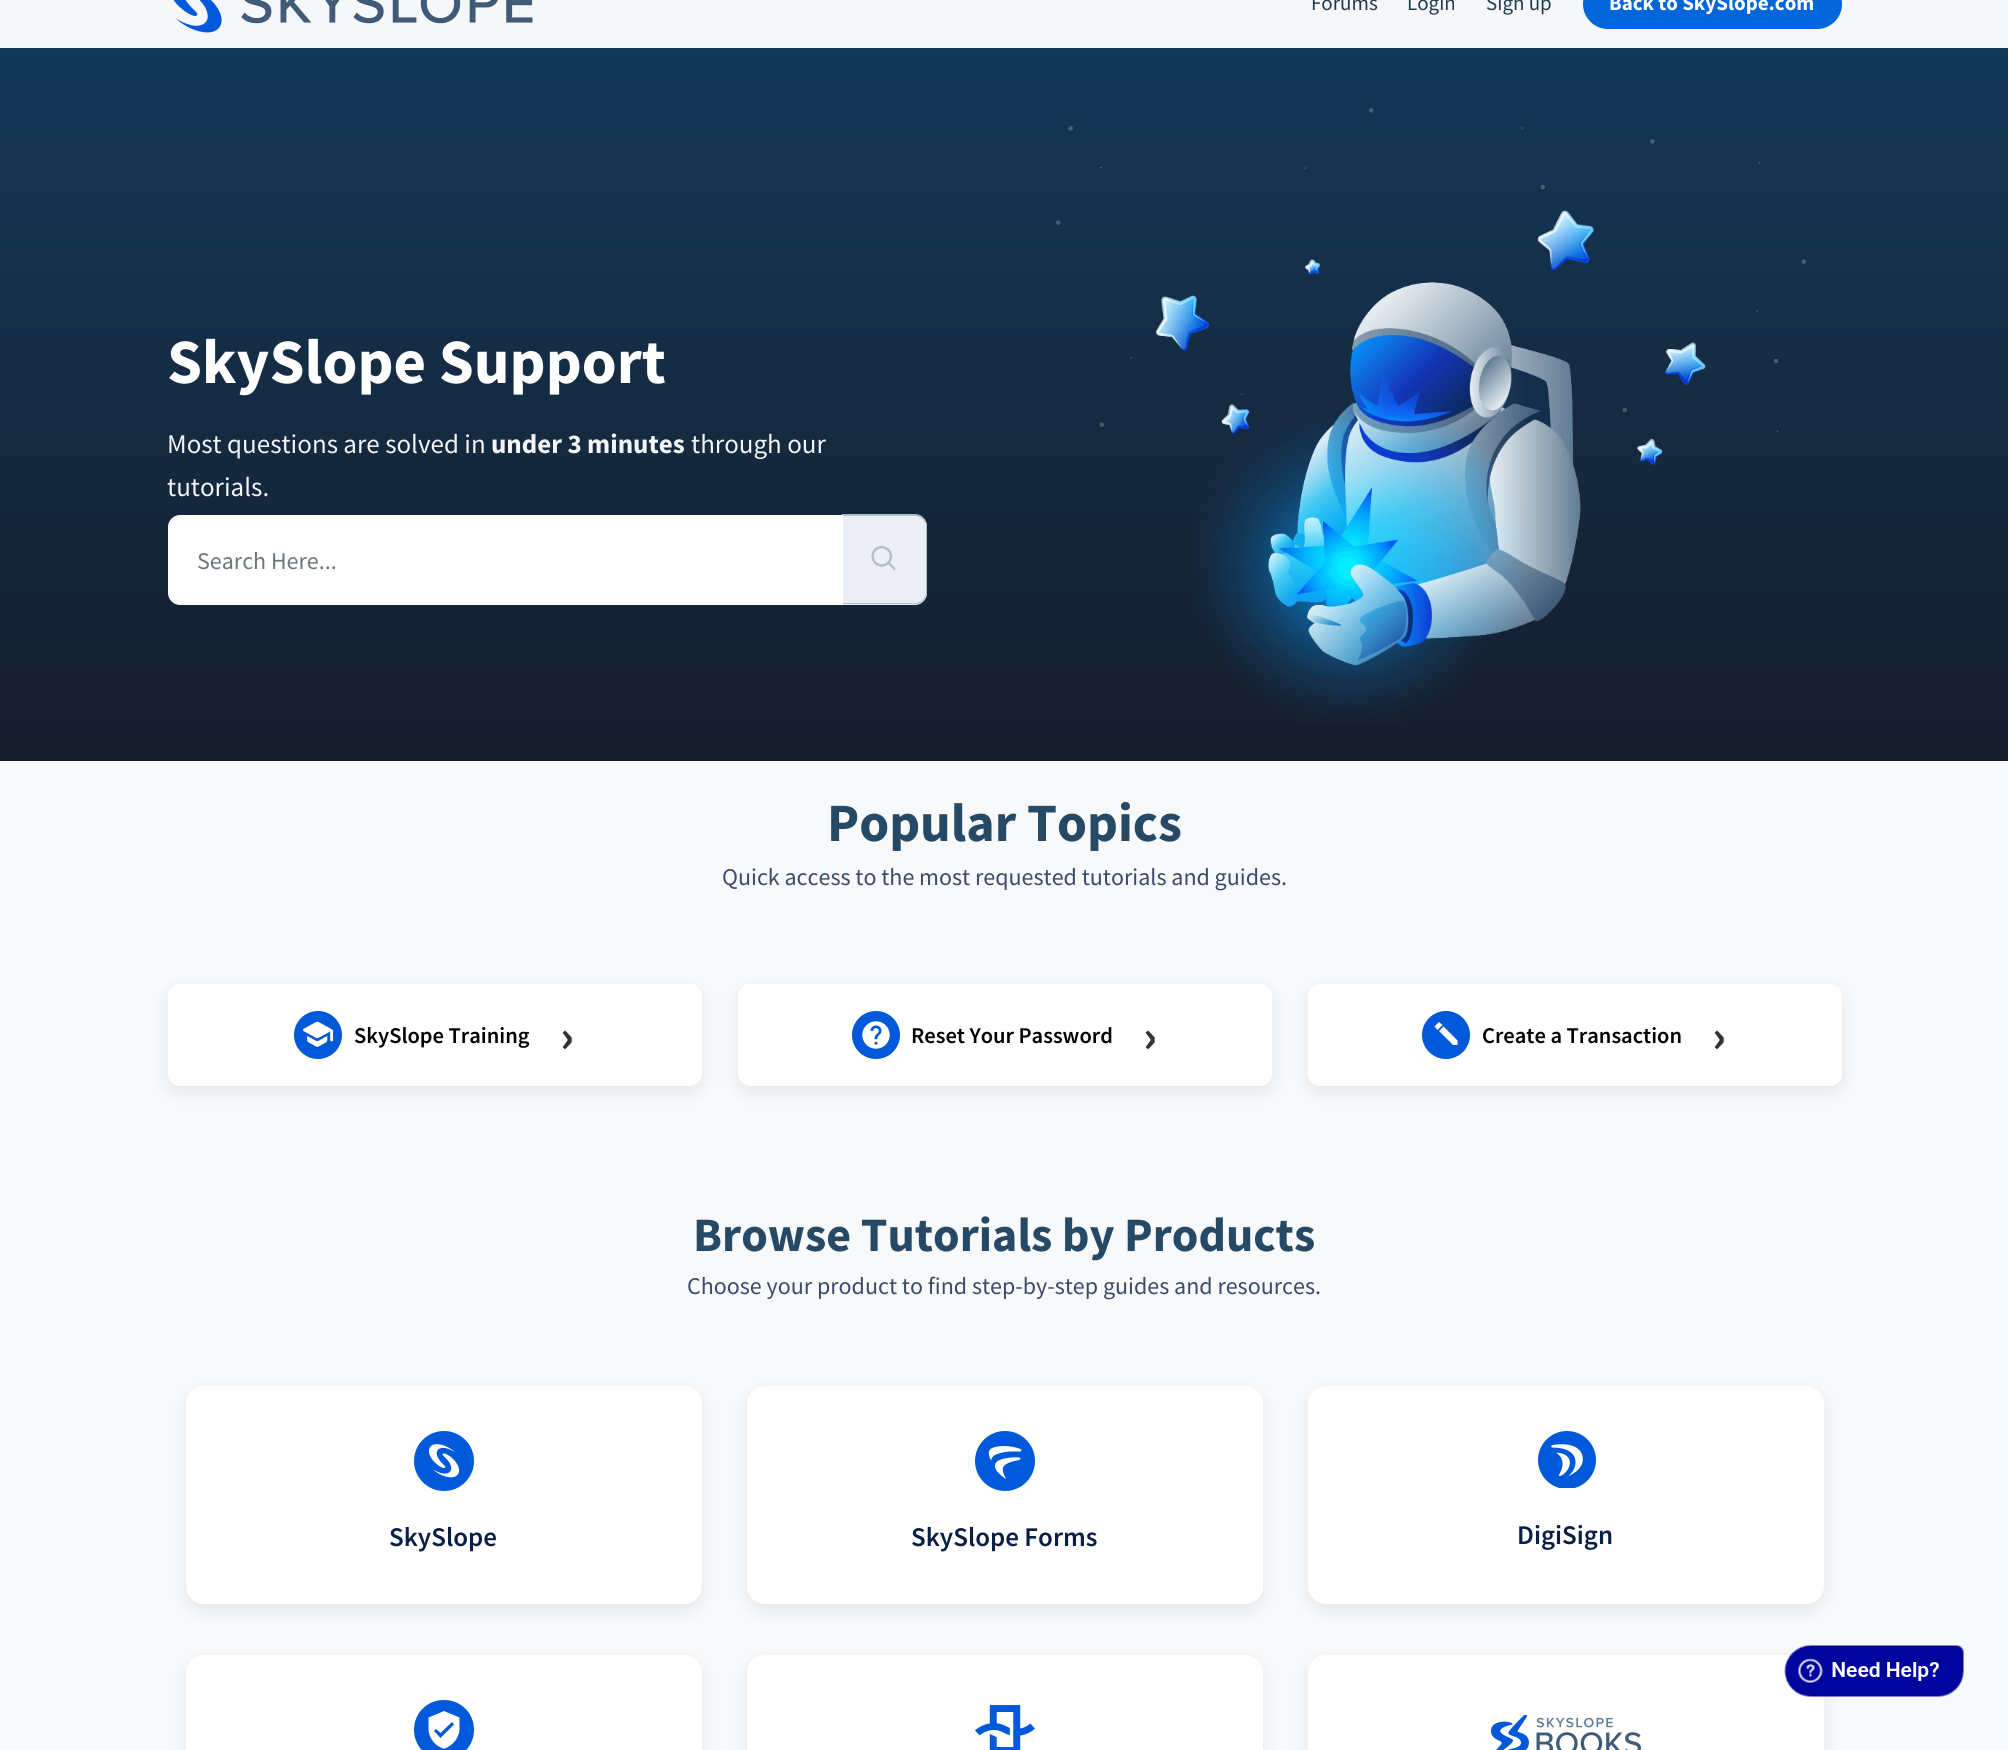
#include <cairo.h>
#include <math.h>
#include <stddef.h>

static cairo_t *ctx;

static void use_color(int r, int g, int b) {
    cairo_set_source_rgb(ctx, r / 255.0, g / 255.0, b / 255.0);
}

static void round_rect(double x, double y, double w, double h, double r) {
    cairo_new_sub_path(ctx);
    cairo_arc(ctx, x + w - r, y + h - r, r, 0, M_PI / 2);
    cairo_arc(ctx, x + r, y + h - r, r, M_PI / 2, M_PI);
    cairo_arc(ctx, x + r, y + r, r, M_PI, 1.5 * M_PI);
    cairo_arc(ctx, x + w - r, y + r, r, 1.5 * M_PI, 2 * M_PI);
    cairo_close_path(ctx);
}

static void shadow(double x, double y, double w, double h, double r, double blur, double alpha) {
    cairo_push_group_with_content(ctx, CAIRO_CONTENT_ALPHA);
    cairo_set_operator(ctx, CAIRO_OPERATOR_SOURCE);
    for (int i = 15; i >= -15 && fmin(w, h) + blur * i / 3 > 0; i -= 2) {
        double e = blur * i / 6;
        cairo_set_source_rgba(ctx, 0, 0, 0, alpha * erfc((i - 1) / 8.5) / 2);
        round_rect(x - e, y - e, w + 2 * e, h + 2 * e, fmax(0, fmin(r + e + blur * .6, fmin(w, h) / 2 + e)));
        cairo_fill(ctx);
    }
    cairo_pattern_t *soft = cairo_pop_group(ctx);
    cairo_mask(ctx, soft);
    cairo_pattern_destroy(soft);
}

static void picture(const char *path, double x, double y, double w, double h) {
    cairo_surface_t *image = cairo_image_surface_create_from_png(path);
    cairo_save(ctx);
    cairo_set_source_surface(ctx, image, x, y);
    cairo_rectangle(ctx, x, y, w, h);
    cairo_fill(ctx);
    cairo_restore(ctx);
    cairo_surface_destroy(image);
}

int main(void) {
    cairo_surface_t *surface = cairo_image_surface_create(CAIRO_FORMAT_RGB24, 2008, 1750);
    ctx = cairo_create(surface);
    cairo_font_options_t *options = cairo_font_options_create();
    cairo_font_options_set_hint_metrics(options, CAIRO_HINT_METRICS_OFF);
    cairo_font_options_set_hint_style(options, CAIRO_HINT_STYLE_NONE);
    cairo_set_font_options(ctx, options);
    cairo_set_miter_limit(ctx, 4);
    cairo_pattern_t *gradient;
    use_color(245, 247, 249);
    cairo_paint(ctx);
    picture("img1.png", 173, 0, 360, 33);
    cairo_select_font_face(ctx, "Source Sans Pro", CAIRO_FONT_SLANT_NORMAL, CAIRO_FONT_WEIGHT_NORMAL);
    cairo_set_font_size(ctx, 21);
    use_color(31, 59, 77);
    cairo_move_to(ctx, 1311, 10);
    cairo_show_text(ctx, "Forums");
    cairo_move_to(ctx, 1407, 10);
    cairo_show_text(ctx, "Login");
    cairo_move_to(ctx, 1486, 10);
    cairo_show_text(ctx, "Sign up");
    use_color(0, 102, 217);
    round_rect(1583, -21, 259, 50, 25);
    cairo_fill(ctx);
    cairo_select_font_face(ctx, "Source Sans Pro", CAIRO_FONT_SLANT_NORMAL, CAIRO_FONT_WEIGHT_BOLD);
    use_color(255, 255, 255);
    cairo_move_to(ctx, 1609, 10);
    cairo_show_text(ctx, "Back to SkySlope.com");
    gradient = cairo_pattern_create_linear(1004, 761, 1004, 48);
    cairo_pattern_add_color_stop_rgba(gradient, 0, 0.086, 0.114, 0.169, 1);
    cairo_pattern_add_color_stop_rgba(gradient, 1, 0.075, 0.22, 0.345, 1);
    cairo_set_source(ctx, gradient);
    cairo_pattern_destroy(gradient);
    cairo_rectangle(ctx, 0, 48, 2008, 713);
    cairo_fill(ctx);
    cairo_set_font_size(ctx, 63);
    use_color(255, 255, 255);
    cairo_move_to(ctx, 167, 383);
    cairo_show_text(ctx, "SkySlope Support");
    cairo_select_font_face(ctx, "Source Sans Pro", CAIRO_FONT_SLANT_NORMAL, CAIRO_FONT_WEIGHT_NORMAL);
    cairo_set_font_size(ctx, 27);
    use_color(243, 244, 245);
    cairo_move_to(ctx, 167, 453);
    cairo_show_text(ctx, "Most questions are solved in");
    cairo_select_font_face(ctx, "Source Sans Pro", CAIRO_FONT_SLANT_NORMAL, CAIRO_FONT_WEIGHT_BOLD);
    cairo_move_to(ctx, 491, 453);
    cairo_show_text(ctx, "under 3 minutes");
    cairo_select_font_face(ctx, "Source Sans Pro", CAIRO_FONT_SLANT_NORMAL, CAIRO_FONT_WEIGHT_NORMAL);
    cairo_move_to(ctx, 691, 453);
    cairo_show_text(ctx, "through our");
    cairo_move_to(ctx, 167, 496);
    cairo_show_text(ctx, "tutorials.");
    use_color(235, 239, 243);
    cairo_new_path(ctx);
    cairo_move_to(ctx, 842, 515);
    cairo_line_to(ctx, 915, 515);
    cairo_curve_to(ctx, 921.5, 515, 927, 520.5, 927, 527);
    cairo_line_to(ctx, 927, 593);
    cairo_curve_to(ctx, 927, 599.5, 921.5, 605, 915, 605);
    cairo_line_to(ctx, 842, 605);
    cairo_close_path(ctx);
    cairo_fill(ctx);
    use_color(177, 189, 200);
    cairo_set_fill_rule(ctx, CAIRO_FILL_RULE_EVEN_ODD);
    cairo_new_path(ctx);
    cairo_move_to(ctx, 842, 514);
    cairo_line_to(ctx, 915, 514);
    cairo_curve_to(ctx, 922, 514, 927, 520, 927, 526);
    cairo_line_to(ctx, 927, 592);
    cairo_curve_to(ctx, 927, 599, 922, 604, 915, 604);
    cairo_line_to(ctx, 842, 604);
    cairo_close_path(ctx);
    cairo_move_to(ctx, 842, 516);
    cairo_line_to(ctx, 915, 516);
    cairo_curve_to(ctx, 921, 516, 926, 521, 926, 526);
    cairo_line_to(ctx, 926, 592);
    cairo_curve_to(ctx, 926, 598, 921, 603, 915, 603);
    cairo_line_to(ctx, 842, 603);
    cairo_close_path(ctx);
    cairo_fill(ctx);
    use_color(255, 255, 255);
    cairo_new_path(ctx);
    cairo_move_to(ctx, 180, 515);
    cairo_line_to(ctx, 843, 515);
    cairo_line_to(ctx, 843, 605);
    cairo_line_to(ctx, 180, 605);
    cairo_curve_to(ctx, 173.5, 605, 168, 599.5, 168, 593);
    cairo_line_to(ctx, 168, 527);
    cairo_curve_to(ctx, 168, 520.5, 173.5, 515, 180, 515);
    cairo_close_path(ctx);
    cairo_fill(ctx);
    cairo_set_font_size(ctx, 24);
    use_color(108, 117, 125);
    cairo_move_to(ctx, 197, 569);
    cairo_show_text(ctx, "Search Here...");
    picture("img2.png", 871, 546, 25, 24);
    picture("img3.png", 1056, 108, 750, 324);
    picture("img4.png", 1155, 210, 551, 514);
    use_color(248, 249, 251);
    cairo_rectangle(ctx, 0, 761, 2008, 989);
    cairo_fill(ctx);
    cairo_select_font_face(ctx, "Source Sans Pro", CAIRO_FONT_SLANT_NORMAL, CAIRO_FONT_WEIGHT_BOLD);
    cairo_set_font_size(ctx, 54);
    use_color(38, 73, 102);
    cairo_move_to(ctx, 827, 841);
    cairo_show_text(ctx, "Popular Topics");
    cairo_select_font_face(ctx, "Source Sans Pro", CAIRO_FONT_SLANT_NORMAL, CAIRO_FONT_WEIGHT_NORMAL);
    cairo_set_font_size(ctx, 24);
    use_color(58, 75, 105);
    cairo_move_to(ctx, 722, 885);
    cairo_show_text(ctx, "Quick access to the most requested tutorials and guides.");
    use_color(0, 0, 0);
    shadow(168, 990, 534, 102, 12, 9, 0.08);
    use_color(255, 255, 255);
    round_rect(168, 984, 534, 102, 12);
    cairo_fill(ctx);
    picture("img5.png", 294, 1011, 48, 48);
    cairo_select_font_face(ctx, "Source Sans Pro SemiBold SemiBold", CAIRO_FONT_SLANT_NORMAL, CAIRO_FONT_WEIGHT_NORMAL);
    cairo_set_font_size(ctx, 22.5);
    use_color(0, 0, 0);
    cairo_move_to(ctx, 354, 1043);
    cairo_show_text(ctx, "SkySlope Training");
    cairo_select_font_face(ctx, "Source Sans Pro", CAIRO_FONT_SLANT_NORMAL, CAIRO_FONT_WEIGHT_BOLD);
    cairo_set_font_size(ctx, 48);
    use_color(51, 51, 51);
    cairo_move_to(ctx, 560, 1052);
    cairo_show_text(ctx, "›");
    use_color(0, 0, 0);
    shadow(738, 990, 534, 102, 12, 9, 0.08);
    use_color(255, 255, 255);
    round_rect(738, 984, 534, 102, 12);
    cairo_fill(ctx);
    picture("img6.png", 852, 1011, 48, 48);
    cairo_select_font_face(ctx, "Source Sans Pro SemiBold SemiBold", CAIRO_FONT_SLANT_NORMAL, CAIRO_FONT_WEIGHT_NORMAL);
    cairo_set_font_size(ctx, 22.5);
    use_color(0, 0, 0);
    cairo_move_to(ctx, 911, 1043);
    cairo_show_text(ctx, "Reset Your Password");
    cairo_select_font_face(ctx, "Source Sans Pro", CAIRO_FONT_SLANT_NORMAL, CAIRO_FONT_WEIGHT_BOLD);
    cairo_set_font_size(ctx, 48);
    use_color(51, 51, 51);
    cairo_move_to(ctx, 1143, 1052);
    cairo_show_text(ctx, "›");
    use_color(0, 0, 0);
    shadow(1308, 990, 534, 102, 12, 9, 0.08);
    use_color(255, 255, 255);
    round_rect(1308, 984, 534, 102, 12);
    cairo_fill(ctx);
    use_color(0, 89, 218);
    cairo_arc(ctx, 1446, 1035, 24, 0, 2 * M_PI);
    cairo_fill(ctx);
    use_color(255, 255, 255);
    cairo_new_path(ctx);
    cairo_move_to(ctx, 1457.5, 1040.5);
    cairo_line_to(ctx, 1457.5, 1045);
    cairo_line_to(ctx, 1453, 1045);
    cairo_line_to(ctx, 1439, 1031);
    cairo_line_to(ctx, 1443.5, 1026.5);
    cairo_close_path(ctx);
    cairo_move_to(ctx, 1434.5, 1026.5);
    cairo_line_to(ctx, 1439, 1022);
    cairo_line_to(ctx, 1442.5, 1025);
    cairo_line_to(ctx, 1437.5, 1030);
    cairo_close_path(ctx);
    cairo_fill(ctx);
    cairo_select_font_face(ctx, "Source Sans Pro SemiBold SemiBold", CAIRO_FONT_SLANT_NORMAL, CAIRO_FONT_WEIGHT_NORMAL);
    cairo_set_font_size(ctx, 22.5);
    use_color(0, 0, 0);
    cairo_move_to(ctx, 1482, 1043);
    cairo_show_text(ctx, "Create a Transaction");
    cairo_select_font_face(ctx, "Source Sans Pro", CAIRO_FONT_SLANT_NORMAL, CAIRO_FONT_WEIGHT_BOLD);
    cairo_set_font_size(ctx, 48);
    use_color(51, 51, 51);
    cairo_move_to(ctx, 1712, 1052);
    cairo_show_text(ctx, "›");
    use_color(38, 73, 102);
    cairo_move_to(ctx, 693, 1251);
    cairo_show_text(ctx, "Browse Tutorials by Products");
    cairo_select_font_face(ctx, "Source Sans Pro", CAIRO_FONT_SLANT_NORMAL, CAIRO_FONT_WEIGHT_NORMAL);
    cairo_set_font_size(ctx, 24);
    use_color(58, 75, 105);
    cairo_move_to(ctx, 687, 1294);
    cairo_show_text(ctx, "Choose your product to find step-by-step guides and resources.");
    use_color(0, 0, 0);
    shadow(186, 1392, 516, 218, 18, 9, 0.08);
    use_color(255, 255, 255);
    round_rect(186, 1386, 516, 218, 18);
    cairo_fill(ctx);
    picture("img7.png", 414, 1431, 60, 60);
    cairo_select_font_face(ctx, "Source Sans Pro SemiBold SemiBold", CAIRO_FONT_SLANT_NORMAL, CAIRO_FONT_WEIGHT_NORMAL);
    cairo_set_font_size(ctx, 27);
    use_color(11, 31, 68);
    cairo_move_to(ctx, 389, 1546);
    cairo_show_text(ctx, "SkySlope");
    use_color(0, 0, 0);
    shadow(747, 1392, 516, 218, 18, 9, 0.08);
    use_color(255, 255, 255);
    round_rect(747, 1386, 516, 218, 18);
    cairo_fill(ctx);
    picture("img8.png", 975, 1431, 60, 60);
    use_color(11, 31, 68);
    cairo_move_to(ctx, 911, 1546);
    cairo_show_text(ctx, "SkySlope Forms");
    use_color(0, 0, 0);
    shadow(1308, 1392, 516, 218, 18, 9, 0.08);
    use_color(255, 255, 255);
    round_rect(1308, 1386, 516, 218, 18);
    cairo_fill(ctx);
    picture("img9.png", 1538, 1431, 58, 57);
    use_color(11, 31, 68);
    cairo_move_to(ctx, 1517, 1544);
    cairo_show_text(ctx, "DigiSign");
    use_color(0, 0, 0);
    shadow(186, 1661, 516, 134, 18, 9, 0.08);
    use_color(255, 255, 255);
    round_rect(186, 1655, 516, 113, 18);
    cairo_fill(ctx);
    use_color(0, 89, 218);
    cairo_set_fill_rule(ctx, CAIRO_FILL_RULE_WINDING);
    cairo_new_path(ctx);
    cairo_move_to(ctx, 444, 1700);
    cairo_curve_to(ctx, 461, 1700, 474, 1713, 474, 1730);
    cairo_curve_to(ctx, 474, 1746, 461, 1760, 444, 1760);
    cairo_curve_to(ctx, 427, 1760, 414, 1746, 414, 1730);
    cairo_curve_to(ctx, 414, 1713, 427, 1700, 444, 1700);
    cairo_close_path(ctx);
    cairo_fill(ctx);
    use_color(255, 255, 255);
    cairo_set_fill_rule(ctx, CAIRO_FILL_RULE_EVEN_ODD);
    cairo_new_path(ctx);
    cairo_move_to(ctx, 444, 1711);
    cairo_line_to(ctx, 459.5, 1717.5);
    cairo_line_to(ctx, 459.5, 1730.5);
    cairo_curve_to(ctx, 458.5, 1738.5, 452.5, 1745.5, 445, 1748.5);
    cairo_line_to(ctx, 443, 1748.5);
    cairo_curve_to(ctx, 435.5, 1746, 429.5, 1739, 428.5, 1730.5);
    cairo_line_to(ctx, 428.5, 1717.5);
    cairo_close_path(ctx);
    cairo_move_to(ctx, 440.5, 1738);
    cairo_line_to(ctx, 454, 1724.5);
    cairo_line_to(ctx, 452, 1722);
    cairo_line_to(ctx, 440.5, 1733);
    cairo_line_to(ctx, 436, 1729);
    cairo_line_to(ctx, 434, 1731);
    cairo_close_path(ctx);
    cairo_fill(ctx);
    use_color(0, 0, 0);
    shadow(747, 1661, 516, 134, 18, 9, 0.08);
    use_color(255, 255, 255);
    round_rect(747, 1655, 516, 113, 18);
    cairo_fill(ctx);
    picture("img10.png", 975, 1705, 60, 45);
    use_color(0, 0, 0);
    shadow(1308, 1661, 516, 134, 18, 9, 0.08);
    use_color(255, 255, 255);
    round_rect(1308, 1655, 516, 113, 18);
    cairo_fill(ctx);
    picture("img11.png", 1491, 1715, 150, 35);
    picture("img12.png", 1784, 1645, 180, 52);
    cairo_surface_write_to_png(surface, "result.png");
    cairo_font_options_destroy(options);
    cairo_destroy(ctx);
    cairo_surface_destroy(surface);
    return 0;
}
